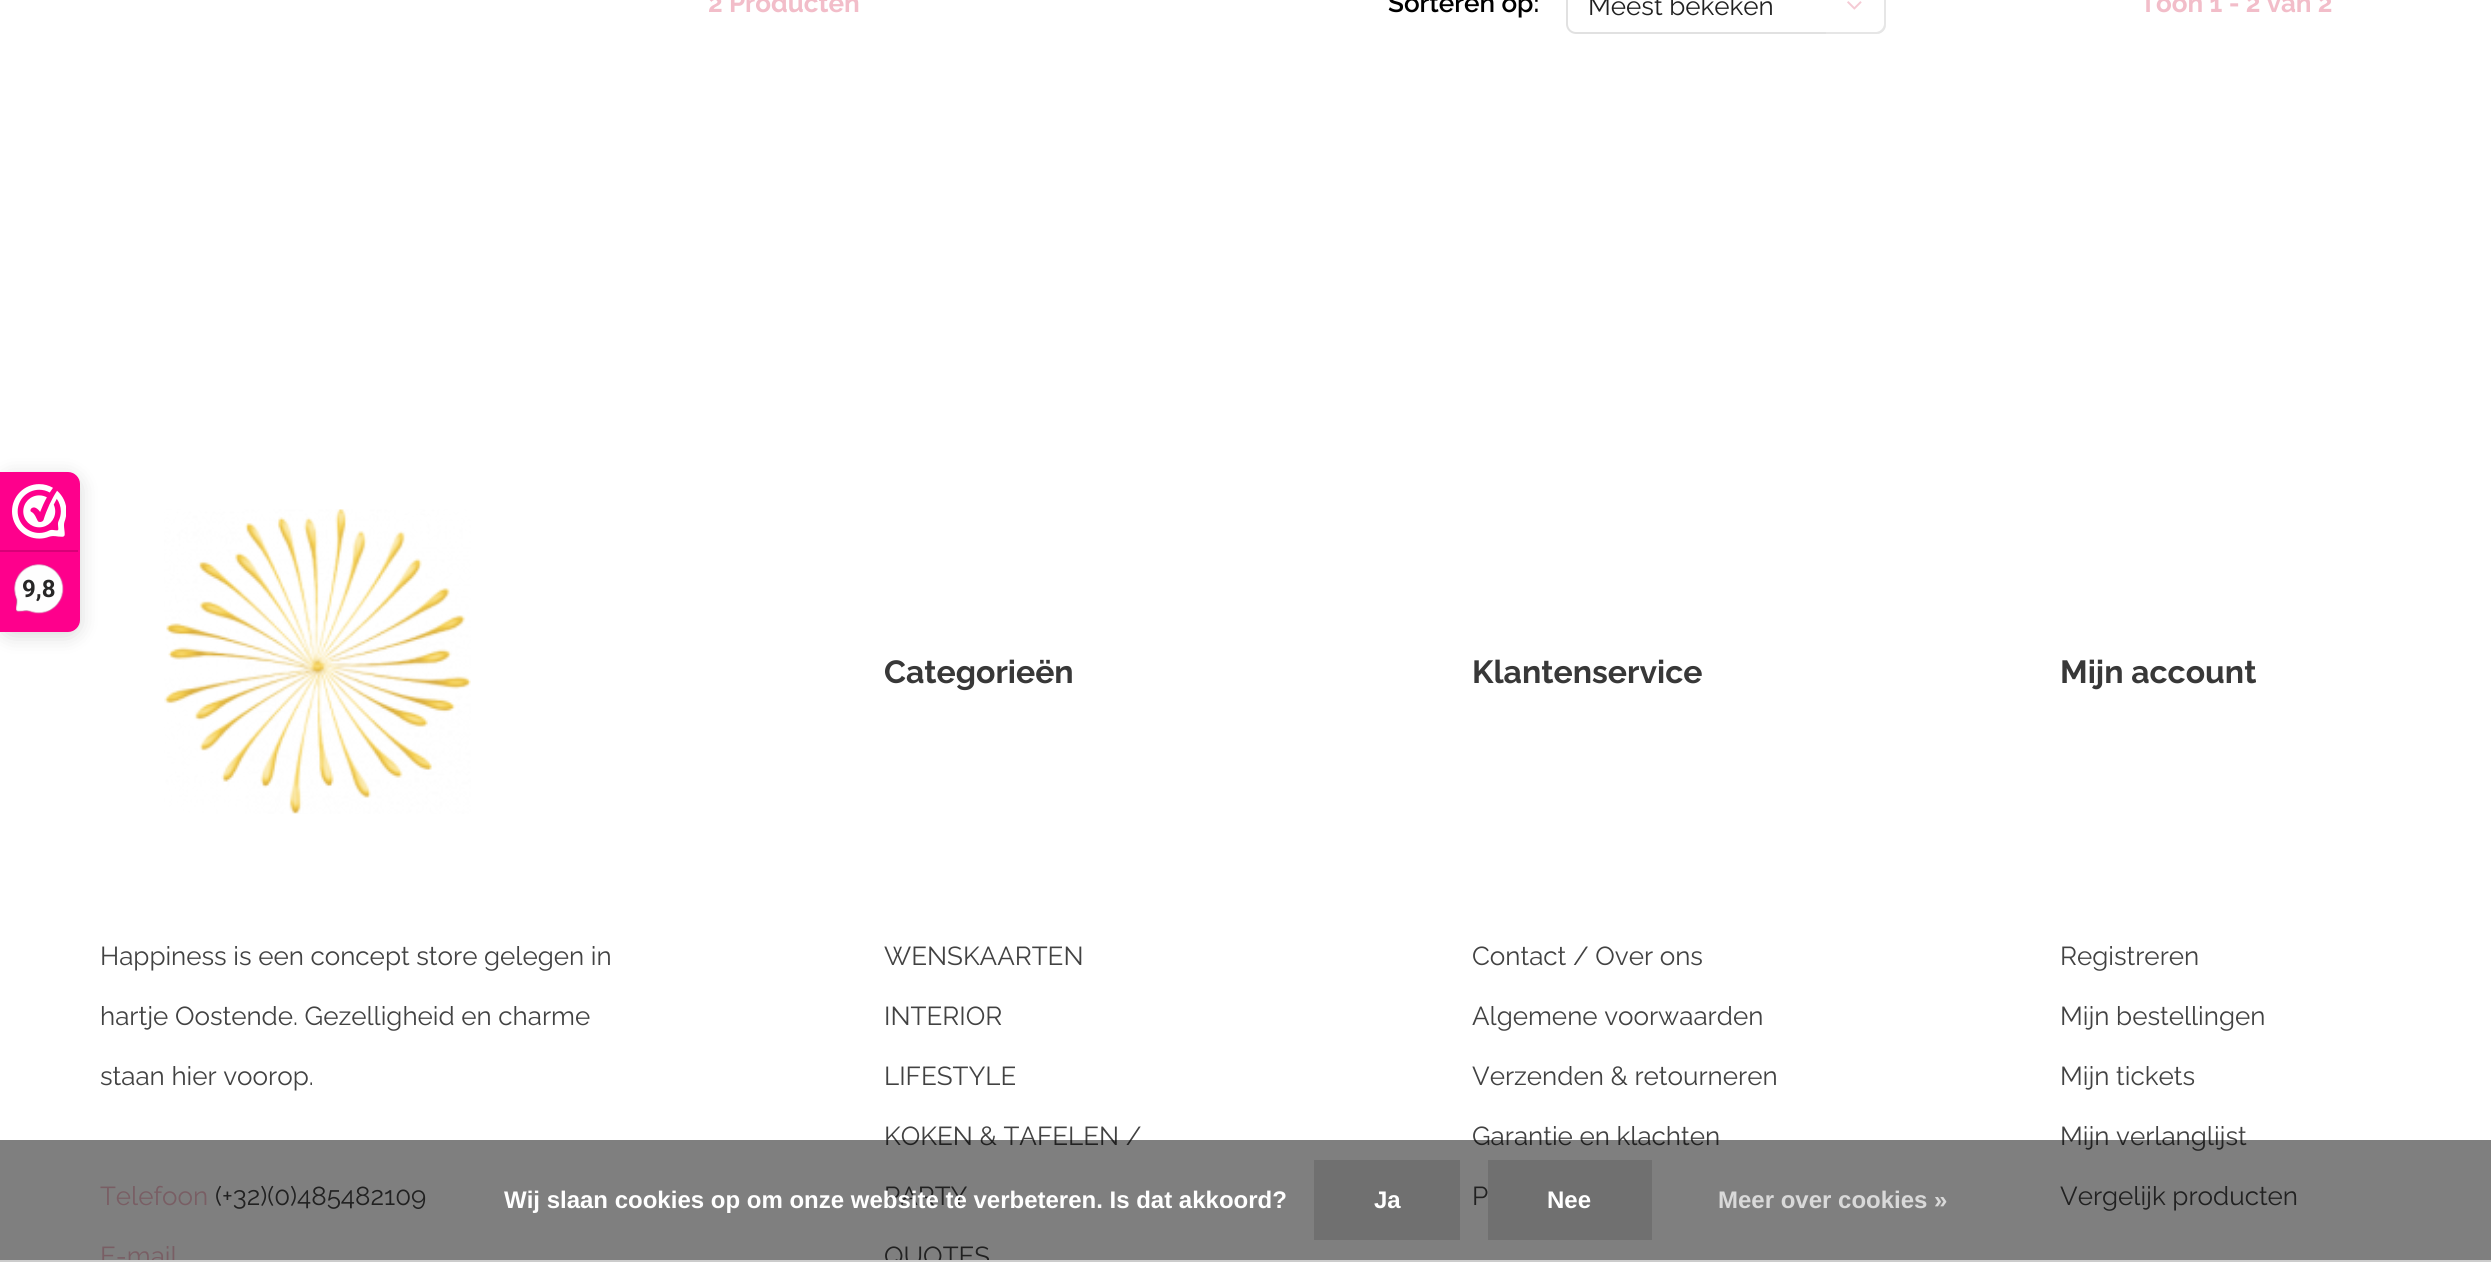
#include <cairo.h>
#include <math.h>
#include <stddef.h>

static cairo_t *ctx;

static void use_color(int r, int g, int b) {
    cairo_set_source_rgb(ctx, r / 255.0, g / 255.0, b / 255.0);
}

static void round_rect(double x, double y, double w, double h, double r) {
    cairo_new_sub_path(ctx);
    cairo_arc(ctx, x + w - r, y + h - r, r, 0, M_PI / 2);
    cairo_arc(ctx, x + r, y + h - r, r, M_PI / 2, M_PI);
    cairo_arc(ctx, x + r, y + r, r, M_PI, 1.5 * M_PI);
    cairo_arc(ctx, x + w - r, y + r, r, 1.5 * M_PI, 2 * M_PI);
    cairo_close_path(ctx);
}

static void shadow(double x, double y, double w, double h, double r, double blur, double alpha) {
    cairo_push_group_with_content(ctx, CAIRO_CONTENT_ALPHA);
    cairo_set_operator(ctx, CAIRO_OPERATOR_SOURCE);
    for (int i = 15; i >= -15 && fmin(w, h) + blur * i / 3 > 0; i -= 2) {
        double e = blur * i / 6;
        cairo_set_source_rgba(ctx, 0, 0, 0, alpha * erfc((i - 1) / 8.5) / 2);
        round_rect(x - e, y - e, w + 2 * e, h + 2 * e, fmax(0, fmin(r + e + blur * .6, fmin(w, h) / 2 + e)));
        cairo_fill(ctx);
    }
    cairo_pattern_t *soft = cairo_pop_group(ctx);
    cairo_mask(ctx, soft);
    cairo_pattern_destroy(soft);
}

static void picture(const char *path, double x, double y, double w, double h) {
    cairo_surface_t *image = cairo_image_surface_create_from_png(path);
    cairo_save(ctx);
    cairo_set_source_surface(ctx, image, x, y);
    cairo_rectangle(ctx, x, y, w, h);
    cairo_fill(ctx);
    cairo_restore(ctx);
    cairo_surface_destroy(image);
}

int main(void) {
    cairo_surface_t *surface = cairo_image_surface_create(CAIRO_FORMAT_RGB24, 2491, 1262);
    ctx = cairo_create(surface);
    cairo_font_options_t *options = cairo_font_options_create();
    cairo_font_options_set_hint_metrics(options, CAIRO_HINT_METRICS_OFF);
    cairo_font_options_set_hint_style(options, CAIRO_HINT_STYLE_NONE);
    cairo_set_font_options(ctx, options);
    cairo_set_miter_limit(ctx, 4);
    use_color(255, 255, 255);
    cairo_paint(ctx);
    use_color(0, 0, 0);
    shadow(0, 476, 80, 160, 12, 10, 0.15);
    use_color(254, 0, 140);
    cairo_new_path(ctx);
    cairo_move_to(ctx, 0, 472);
    cairo_line_to(ctx, 68, 472);
    cairo_curve_to(ctx, 74.5, 472, 80, 477.5, 80, 484);
    cairo_line_to(ctx, 80, 620);
    cairo_curve_to(ctx, 80, 626.5, 74.5, 632, 68, 632);
    cairo_line_to(ctx, 0, 632);
    cairo_close_path(ctx);
    cairo_fill(ctx);
    picture("img1.png", 12, 484, 54, 55);
    use_color(216, 0, 119);
    cairo_rectangle(ctx, 0, 550, 78, 2);
    cairo_fill(ctx);
    picture("img2.png", 14, 564, 50, 50);
    cairo_select_font_face(ctx, "Roboto", CAIRO_FONT_SLANT_NORMAL, CAIRO_FONT_WEIGHT_BOLD);
    cairo_set_font_size(ctx, 24);
    use_color(39, 38, 38);
    cairo_move_to(ctx, 22, 597);
    cairo_show_text(ctx, "9,8");
    cairo_select_font_face(ctx, "Raleway", CAIRO_FONT_SLANT_NORMAL, CAIRO_FONT_WEIGHT_BOLD);
    cairo_set_font_size(ctx, 26);
    use_color(242, 189, 201);
    cairo_move_to(ctx, 708, 12);
    cairo_show_text(ctx, "2 Producten");
    cairo_select_font_face(ctx, "Raleway SemiBold", CAIRO_FONT_SLANT_NORMAL, CAIRO_FONT_WEIGHT_NORMAL);
    use_color(0, 0, 0);
    cairo_move_to(ctx, 1388, 12);
    cairo_show_text(ctx, "Sorteren op:");
    round_rect(1567, -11, 318, 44, 9);
    use_color(225, 225, 225);
    cairo_stroke(ctx);
    cairo_select_font_face(ctx, "Raleway", CAIRO_FONT_SLANT_NORMAL, CAIRO_FONT_WEIGHT_NORMAL);
    use_color(33, 33, 33);
    cairo_move_to(ctx, 1588, 15);
    cairo_show_text(ctx, "Meest bekeken");
    cairo_set_source_rgba(ctx, 1, 1, 1, 0.8);
    cairo_new_path(ctx);
    cairo_move_to(ctx, 1826, -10);
    cairo_line_to(ctx, 1876, -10);
    cairo_curve_to(ctx, 1881.5, -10, 1886, -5.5, 1886, 0);
    cairo_line_to(ctx, 1886, 24);
    cairo_curve_to(ctx, 1886, 29.5, 1881.5, 34, 1876, 34);
    cairo_line_to(ctx, 1826, 34);
    cairo_close_path(ctx);
    cairo_fill(ctx);
    cairo_set_source_rgba(ctx, 0.882, 0.882, 0.882, 0.8);
    cairo_set_fill_rule(ctx, CAIRO_FILL_RULE_EVEN_ODD);
    cairo_new_path(ctx);
    cairo_move_to(ctx, 1826, -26);
    cairo_line_to(ctx, 1876, -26);
    cairo_curve_to(ctx, 1882, -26, 1886, -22, 1886, -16);
    cairo_line_to(ctx, 1886, 24);
    cairo_curve_to(ctx, 1886, 30, 1882, 34, 1876, 34);
    cairo_line_to(ctx, 1826, 34);
    cairo_close_path(ctx);
    cairo_move_to(ctx, 1826, -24);
    cairo_line_to(ctx, 1876, -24);
    cairo_curve_to(ctx, 1880, -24, 1884, -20, 1884, -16);
    cairo_line_to(ctx, 1884, 24);
    cairo_curve_to(ctx, 1884, 28, 1880, 32, 1876, 32);
    cairo_line_to(ctx, 1826, 32);
    cairo_close_path(ctx);
    cairo_fill(ctx);
    picture("img3.png", 1847, 1, 15, 9);
    cairo_select_font_face(ctx, "Raleway", CAIRO_FONT_SLANT_NORMAL, CAIRO_FONT_WEIGHT_BOLD);
    use_color(242, 189, 201);
    cairo_move_to(ctx, 2140, 12);
    cairo_show_text(ctx, "Toon 1 - 2 van 2");
    picture("img4.png", 164, 509, 307, 305);
    cairo_select_font_face(ctx, "Raleway", CAIRO_FONT_SLANT_NORMAL, CAIRO_FONT_WEIGHT_NORMAL);
    use_color(66, 66, 66);
    cairo_move_to(ctx, 100, 965);
    cairo_show_text(ctx, "Happiness is een concept store gelegen in");
    cairo_move_to(ctx, 100, 1025);
    cairo_show_text(ctx, "hartje Oostende. Gezelligheid en charme");
    cairo_move_to(ctx, 100, 1085);
    cairo_show_text(ctx, "staan hier voorop.");
    use_color(242, 189, 201);
    cairo_move_to(ctx, 100, 1205);
    cairo_show_text(ctx, "Telefoon");
    use_color(66, 66, 66);
    cairo_move_to(ctx, 215, 1205);
    cairo_show_text(ctx, "(+32)(0)485482109");
    use_color(242, 189, 201);
    cairo_move_to(ctx, 100, 1265);
    cairo_show_text(ctx, "E-mail");
    cairo_select_font_face(ctx, "Raleway", CAIRO_FONT_SLANT_NORMAL, CAIRO_FONT_WEIGHT_BOLD);
    cairo_set_font_size(ctx, 32);
    use_color(56, 56, 56);
    cairo_move_to(ctx, 884, 683);
    cairo_show_text(ctx, "Categorieën");
    cairo_select_font_face(ctx, "Raleway", CAIRO_FONT_SLANT_NORMAL, CAIRO_FONT_WEIGHT_NORMAL);
    cairo_set_font_size(ctx, 26);
    use_color(66, 66, 66);
    cairo_move_to(ctx, 884, 965);
    cairo_show_text(ctx, "WENSKAARTEN");
    cairo_move_to(ctx, 884, 1025);
    cairo_show_text(ctx, "INTERIOR");
    cairo_move_to(ctx, 884, 1085);
    cairo_show_text(ctx, "LIFESTYLE");
    cairo_move_to(ctx, 884, 1145);
    cairo_show_text(ctx, "KOKEN & TAFELEN /");
    cairo_move_to(ctx, 884, 1205);
    cairo_show_text(ctx, "PARTY");
    cairo_move_to(ctx, 884, 1265);
    cairo_show_text(ctx, "QUOTES");
    cairo_select_font_face(ctx, "Raleway", CAIRO_FONT_SLANT_NORMAL, CAIRO_FONT_WEIGHT_BOLD);
    cairo_set_font_size(ctx, 32);
    use_color(56, 56, 56);
    cairo_move_to(ctx, 1472, 683);
    cairo_show_text(ctx, "Klantenservice");
    cairo_select_font_face(ctx, "Raleway", CAIRO_FONT_SLANT_NORMAL, CAIRO_FONT_WEIGHT_NORMAL);
    cairo_set_font_size(ctx, 26);
    use_color(66, 66, 66);
    cairo_move_to(ctx, 1472, 965);
    cairo_show_text(ctx, "Contact / Over ons");
    cairo_move_to(ctx, 1472, 1025);
    cairo_show_text(ctx, "Algemene voorwaarden");
    cairo_move_to(ctx, 1472, 1085);
    cairo_show_text(ctx, "Verzenden & retourneren");
    cairo_move_to(ctx, 1472, 1145);
    cairo_show_text(ctx, "Garantie en klachten");
    cairo_move_to(ctx, 1472, 1205);
    cairo_show_text(ctx, "P");
    cairo_select_font_face(ctx, "Raleway", CAIRO_FONT_SLANT_NORMAL, CAIRO_FONT_WEIGHT_BOLD);
    cairo_set_font_size(ctx, 32);
    use_color(56, 56, 56);
    cairo_move_to(ctx, 2060, 683);
    cairo_show_text(ctx, "Mijn account");
    cairo_select_font_face(ctx, "Raleway", CAIRO_FONT_SLANT_NORMAL, CAIRO_FONT_WEIGHT_NORMAL);
    cairo_set_font_size(ctx, 26);
    use_color(66, 66, 66);
    cairo_move_to(ctx, 2060, 965);
    cairo_show_text(ctx, "Registreren");
    cairo_move_to(ctx, 2060, 1025);
    cairo_show_text(ctx, "Mijn bestellingen");
    cairo_move_to(ctx, 2060, 1085);
    cairo_show_text(ctx, "Mijn tickets");
    cairo_move_to(ctx, 2060, 1145);
    cairo_show_text(ctx, "Mijn verlanglijst");
    cairo_move_to(ctx, 2060, 1205);
    cairo_show_text(ctx, "Vergelijk producten");
    cairo_set_source_rgba(ctx, 0, 0, 0, 0.5);
    cairo_rectangle(ctx, 0, 1140, 2491, 120);
    cairo_fill(ctx);
    use_color(204, 204, 204);
    cairo_rectangle(ctx, 0, 1260, 2491, 2);
    cairo_fill(ctx);
    cairo_select_font_face(ctx, "Liberation Sans", CAIRO_FONT_SLANT_NORMAL, CAIRO_FONT_WEIGHT_BOLD);
    cairo_set_font_size(ctx, 24);
    use_color(255, 255, 255);
    cairo_move_to(ctx, 504, 1208);
    cairo_show_text(ctx, "Wij slaan cookies op om onze website te verbeteren. Is dat akkoord?");
    use_color(112, 112, 112);
    cairo_rectangle(ctx, 1314, 1160, 146, 80);
    cairo_fill(ctx);
    use_color(255, 255, 255);
    cairo_move_to(ctx, 1374, 1208);
    cairo_show_text(ctx, "Ja");
    use_color(112, 112, 112);
    cairo_rectangle(ctx, 1488, 1160, 164, 80);
    cairo_fill(ctx);
    use_color(255, 255, 255);
    cairo_move_to(ctx, 1547, 1208);
    cairo_show_text(ctx, "Nee");
    use_color(217, 217, 217);
    cairo_move_to(ctx, 1718, 1208);
    cairo_show_text(ctx, "Meer over cookies »");
    cairo_surface_write_to_png(surface, "result.png");
    cairo_font_options_destroy(options);
    cairo_destroy(ctx);
    cairo_surface_destroy(surface);
    return 0;
}
